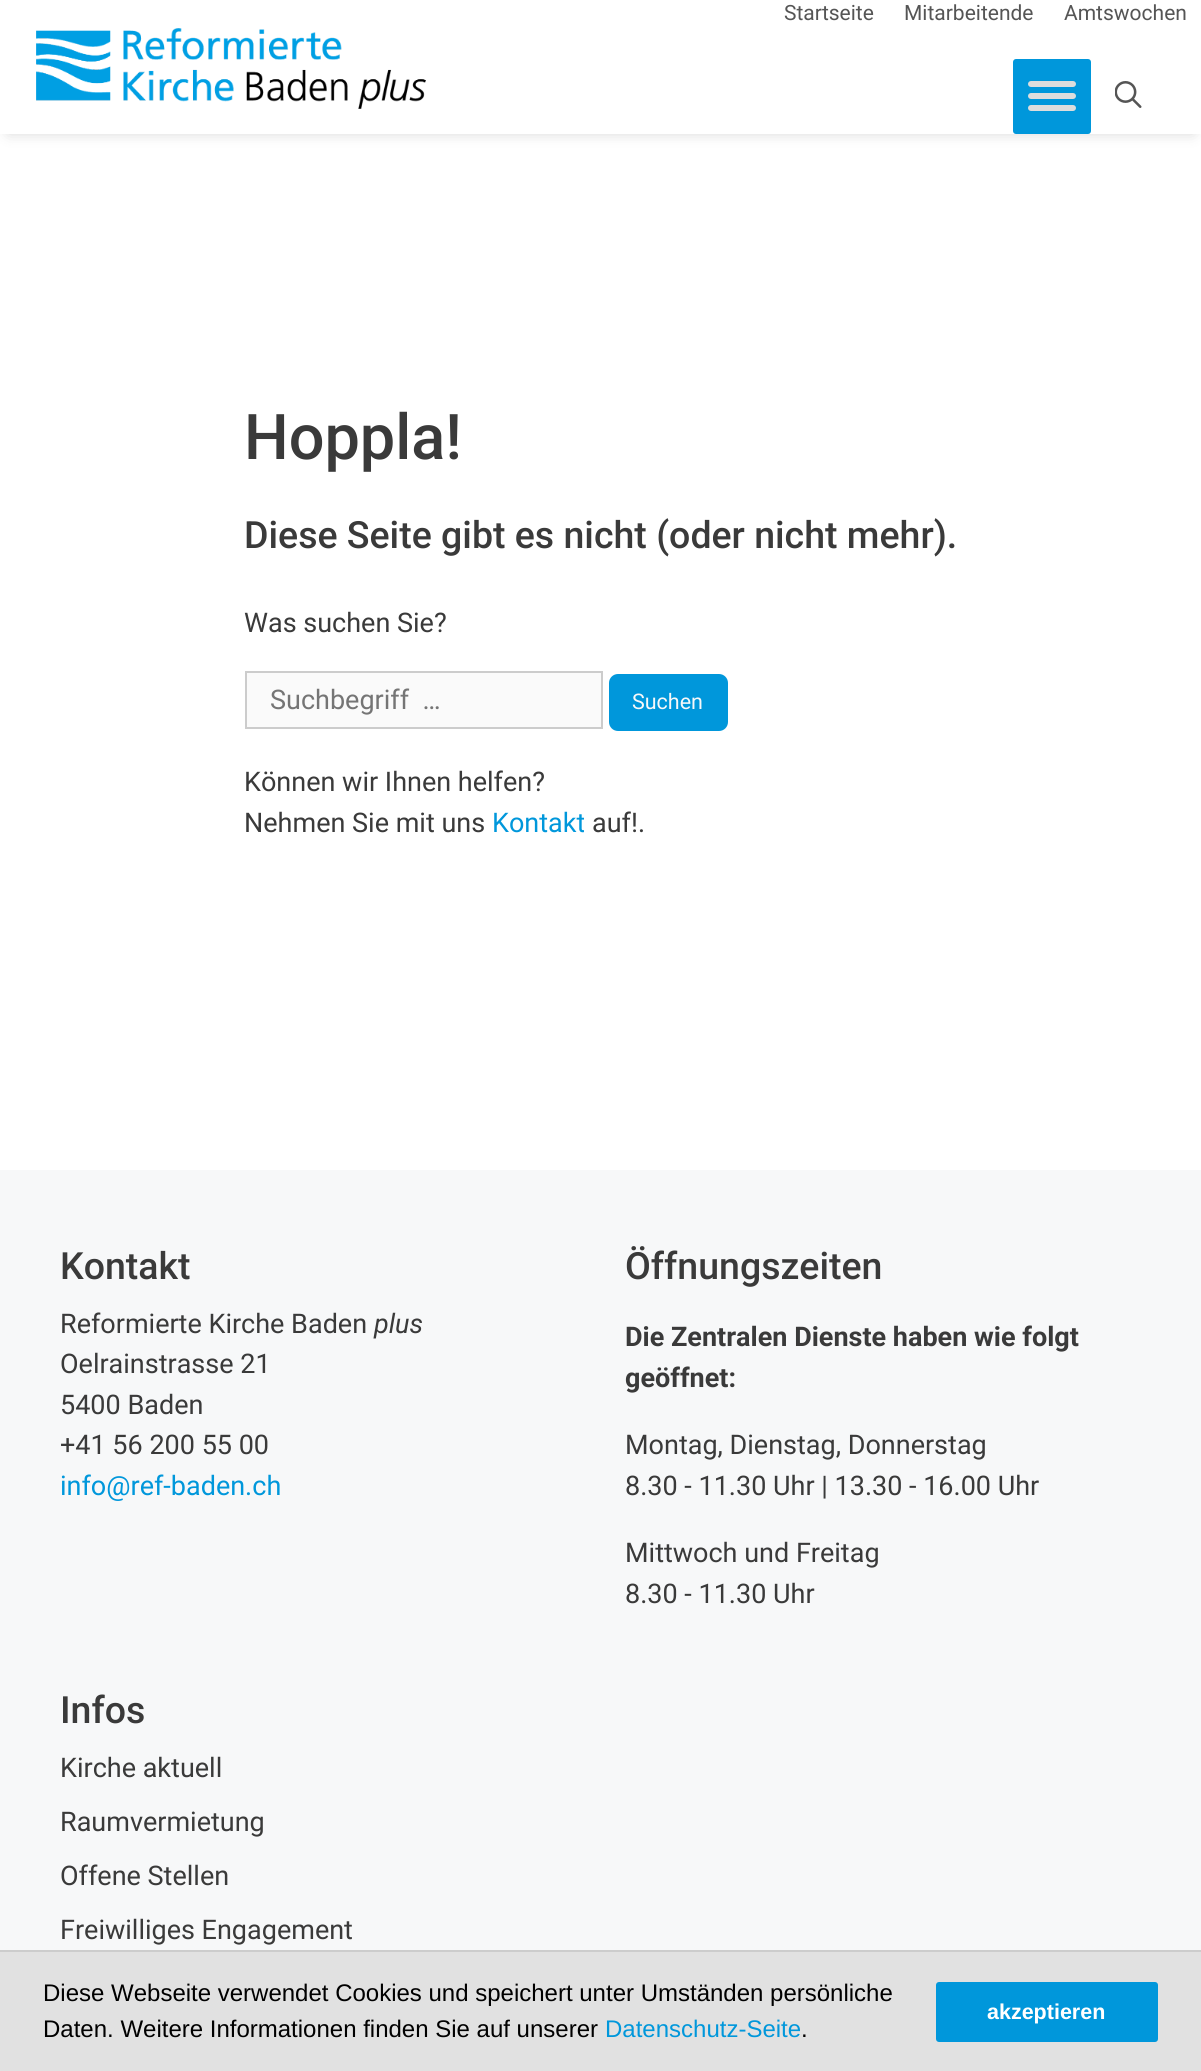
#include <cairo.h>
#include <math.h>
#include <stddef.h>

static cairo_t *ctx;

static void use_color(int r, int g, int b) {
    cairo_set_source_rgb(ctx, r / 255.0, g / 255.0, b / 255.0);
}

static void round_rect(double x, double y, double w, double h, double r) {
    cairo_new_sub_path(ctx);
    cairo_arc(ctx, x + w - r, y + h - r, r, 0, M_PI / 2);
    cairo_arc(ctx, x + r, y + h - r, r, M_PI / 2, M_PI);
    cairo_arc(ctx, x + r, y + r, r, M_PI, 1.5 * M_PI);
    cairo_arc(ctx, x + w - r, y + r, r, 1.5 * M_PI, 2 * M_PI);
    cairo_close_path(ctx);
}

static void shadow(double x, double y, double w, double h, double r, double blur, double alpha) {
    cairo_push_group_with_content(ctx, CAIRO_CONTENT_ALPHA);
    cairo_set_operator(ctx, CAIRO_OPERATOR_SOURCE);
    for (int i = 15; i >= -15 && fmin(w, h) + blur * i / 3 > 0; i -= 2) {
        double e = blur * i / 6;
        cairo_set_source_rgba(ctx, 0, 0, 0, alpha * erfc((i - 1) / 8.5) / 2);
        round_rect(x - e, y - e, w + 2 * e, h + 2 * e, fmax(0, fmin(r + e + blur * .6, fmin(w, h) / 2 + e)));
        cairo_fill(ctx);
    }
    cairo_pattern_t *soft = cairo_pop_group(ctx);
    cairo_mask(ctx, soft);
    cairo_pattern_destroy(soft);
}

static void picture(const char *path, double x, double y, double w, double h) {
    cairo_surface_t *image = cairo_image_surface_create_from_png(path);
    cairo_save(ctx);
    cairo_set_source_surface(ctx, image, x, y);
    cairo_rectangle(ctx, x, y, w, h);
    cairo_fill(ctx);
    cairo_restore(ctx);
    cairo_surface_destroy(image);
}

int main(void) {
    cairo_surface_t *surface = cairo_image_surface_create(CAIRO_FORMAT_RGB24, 1201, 2071);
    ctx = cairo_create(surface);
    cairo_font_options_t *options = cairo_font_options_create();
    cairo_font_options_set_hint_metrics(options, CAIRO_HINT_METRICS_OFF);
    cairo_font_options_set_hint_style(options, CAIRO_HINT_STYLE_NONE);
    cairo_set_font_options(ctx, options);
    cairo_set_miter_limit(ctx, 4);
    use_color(255, 255, 255);
    cairo_paint(ctx);
    cairo_select_font_face(ctx, "Roboto", CAIRO_FONT_SLANT_NORMAL, CAIRO_FONT_WEIGHT_NORMAL);
    cairo_set_font_size(ctx, 21);
    use_color(85, 85, 85);
    cairo_move_to(ctx, 784, 20);
    cairo_show_text(ctx, "Startseite");
    cairo_move_to(ctx, 904, 20);
    cairo_show_text(ctx, "Mitarbeitende");
    cairo_move_to(ctx, 1064, 20);
    cairo_show_text(ctx, "Amtswochen");
    cairo_save(ctx);
    cairo_set_fill_rule(ctx, CAIRO_FILL_RULE_EVEN_ODD);
    cairo_new_path(ctx);
    cairo_move_to(ctx, 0, 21);
    cairo_line_to(ctx, 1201, 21);
    cairo_line_to(ctx, 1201, 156);
    cairo_line_to(ctx, 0, 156);
    cairo_close_path(ctx);
    cairo_move_to(ctx, 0, 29);
    cairo_line_to(ctx, 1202, 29);
    cairo_line_to(ctx, 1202, 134);
    cairo_line_to(ctx, 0, 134);
    cairo_close_path(ctx);
    cairo_clip(ctx);
    use_color(0, 0, 0);
    shadow(9, 45, 1184, 87, 0, 7.5, 0.2);
    cairo_restore(ctx);
    picture("img1.png", 36, 28, 390, 81);
    use_color(255, 255, 255);
    cairo_rectangle(ctx, 1013, 133, 153, 1);
    cairo_fill(ctx);
    use_color(0, 151, 219);
    round_rect(1013, 59, 78, 75, 3);
    cairo_fill(ctx);
    use_color(221, 221, 221);
    round_rect(1028, 81, 48, 6, 3);
    cairo_fill(ctx);
    round_rect(1028, 93, 48, 6, 3);
    cairo_fill(ctx);
    round_rect(1028, 105, 48, 6, 3);
    cairo_fill(ctx);
    picture("img2.png", 1115, 81, 27, 27);
    cairo_select_font_face(ctx, "Roboto Medium", CAIRO_FONT_SLANT_NORMAL, CAIRO_FONT_WEIGHT_NORMAL);
    cairo_set_font_size(ctx, 63);
    use_color(58, 58, 58);
    cairo_move_to(ctx, 244, 459);
    cairo_show_text(ctx, "Hoppla!");
    cairo_set_font_size(ctx, 37.5);
    cairo_move_to(ctx, 244, 548);
    cairo_show_text(ctx, "Diese Seite gibt es nicht (oder nicht mehr).");
    cairo_select_font_face(ctx, "Roboto", CAIRO_FONT_SLANT_NORMAL, CAIRO_FONT_WEIGHT_NORMAL);
    cairo_set_font_size(ctx, 27);
    cairo_move_to(ctx, 244, 632);
    cairo_show_text(ctx, "Was suchen Sie?");
    use_color(250, 250, 250);
    cairo_rectangle(ctx, 246, 672, 356, 56);
    cairo_fill_preserve(ctx);
    use_color(204, 204, 204);
    cairo_stroke(ctx);
    use_color(117, 117, 117);
    cairo_move_to(ctx, 270, 709);
    cairo_show_text(ctx, "Suchbegriff  …");
    use_color(0, 151, 219);
    round_rect(609, 674, 119, 57, 9);
    cairo_fill(ctx);
    cairo_set_font_size(ctx, 21.5);
    use_color(247, 248, 249);
    cairo_move_to(ctx, 632, 709);
    cairo_show_text(ctx, "Suchen");
    cairo_set_font_size(ctx, 27);
    use_color(58, 58, 58);
    cairo_move_to(ctx, 244, 791);
    cairo_show_text(ctx, "Können wir Ihnen helfen?");
    cairo_move_to(ctx, 244, 832);
    cairo_show_text(ctx, "Nehmen Sie mit uns");
    use_color(0, 151, 219);
    cairo_move_to(ctx, 492, 832);
    cairo_show_text(ctx, "Kontakt");
    use_color(58, 58, 58);
    cairo_move_to(ctx, 592, 832);
    cairo_show_text(ctx, "auf!.");
    use_color(247, 248, 249);
    cairo_rectangle(ctx, 0, 1170, 1201, 780);
    cairo_fill(ctx);
    cairo_select_font_face(ctx, "Roboto Medium", CAIRO_FONT_SLANT_NORMAL, CAIRO_FONT_WEIGHT_NORMAL);
    cairo_set_font_size(ctx, 37.5);
    use_color(58, 58, 58);
    cairo_move_to(ctx, 60, 1279);
    cairo_show_text(ctx, "Kontakt");
    cairo_select_font_face(ctx, "Roboto", CAIRO_FONT_SLANT_NORMAL, CAIRO_FONT_WEIGHT_NORMAL);
    cairo_set_font_size(ctx, 27);
    cairo_move_to(ctx, 60, 1333);
    cairo_show_text(ctx, "Reformierte Kirche Baden");
    cairo_select_font_face(ctx, "Roboto", CAIRO_FONT_SLANT_ITALIC, CAIRO_FONT_WEIGHT_NORMAL);
    cairo_move_to(ctx, 374, 1333);
    cairo_show_text(ctx, "plus");
    cairo_select_font_face(ctx, "Roboto", CAIRO_FONT_SLANT_NORMAL, CAIRO_FONT_WEIGHT_NORMAL);
    cairo_move_to(ctx, 60, 1373);
    cairo_show_text(ctx, "Oelrainstrasse 21");
    cairo_move_to(ctx, 60, 1414);
    cairo_show_text(ctx, "5400 Baden");
    cairo_move_to(ctx, 60, 1454);
    cairo_show_text(ctx, "+41 56 200 55 00");
    use_color(0, 151, 219);
    cairo_move_to(ctx, 60, 1495);
    cairo_show_text(ctx, "info@ref-baden.ch");
    cairo_select_font_face(ctx, "Roboto Medium", CAIRO_FONT_SLANT_NORMAL, CAIRO_FONT_WEIGHT_NORMAL);
    cairo_set_font_size(ctx, 37.5);
    use_color(58, 58, 58);
    cairo_move_to(ctx, 625, 1279);
    cairo_show_text(ctx, "Öffnungszeiten");
    cairo_select_font_face(ctx, "Roboto", CAIRO_FONT_SLANT_NORMAL, CAIRO_FONT_WEIGHT_BOLD);
    cairo_set_font_size(ctx, 27);
    cairo_move_to(ctx, 625, 1346);
    cairo_show_text(ctx, "Die Zentralen Dienste haben wie folgt");
    cairo_move_to(ctx, 625, 1387);
    cairo_show_text(ctx, "geöffnet:");
    cairo_select_font_face(ctx, "Roboto", CAIRO_FONT_SLANT_NORMAL, CAIRO_FONT_WEIGHT_NORMAL);
    cairo_move_to(ctx, 625, 1454);
    cairo_show_text(ctx, "Montag, Dienstag, Donnerstag");
    cairo_move_to(ctx, 625, 1495);
    cairo_show_text(ctx, "8.30 - 11.30 Uhr | 13.30 - 16.00 Uhr");
    cairo_move_to(ctx, 625, 1562);
    cairo_show_text(ctx, "Mittwoch und Freitag");
    cairo_move_to(ctx, 625, 1603);
    cairo_show_text(ctx, "8.30 - 11.30 Uhr");
    cairo_select_font_face(ctx, "Roboto Medium", CAIRO_FONT_SLANT_NORMAL, CAIRO_FONT_WEIGHT_NORMAL);
    cairo_set_font_size(ctx, 37.5);
    cairo_move_to(ctx, 60, 1723);
    cairo_show_text(ctx, "Infos");
    cairo_select_font_face(ctx, "Roboto", CAIRO_FONT_SLANT_NORMAL, CAIRO_FONT_WEIGHT_NORMAL);
    cairo_set_font_size(ctx, 27);
    cairo_move_to(ctx, 60, 1777);
    cairo_show_text(ctx, "Kirche aktuell");
    cairo_move_to(ctx, 60, 1831);
    cairo_show_text(ctx, "Raumvermietung");
    cairo_move_to(ctx, 60, 1885);
    cairo_show_text(ctx, "Offene Stellen");
    cairo_move_to(ctx, 60, 1939);
    cairo_show_text(ctx, "Freiwilliges Engagement");
    use_color(225, 225, 225);
    cairo_rectangle(ctx, 0, 1952, 1201, 119);
    cairo_fill(ctx);
    use_color(204, 204, 204);
    cairo_rectangle(ctx, 0, 1950, 1201, 2);
    cairo_fill(ctx);
    cairo_select_font_face(ctx, "Liberation Sans", CAIRO_FONT_SLANT_NORMAL, CAIRO_FONT_WEIGHT_NORMAL);
    cairo_set_font_size(ctx, 24);
    use_color(0, 0, 0);
    cairo_move_to(ctx, 43, 2001);
    cairo_show_text(ctx, "Diese Webseite verwendet Cookies und speichert unter Umständen persönliche");
    cairo_move_to(ctx, 43, 2037);
    cairo_show_text(ctx, "Daten. Weitere Informationen finden Sie auf unserer");
    use_color(0, 151, 219);
    cairo_move_to(ctx, 605, 2037);
    cairo_show_text(ctx, "Datenschutz-Seite");
    use_color(0, 0, 0);
    cairo_move_to(ctx, 801, 2037);
    cairo_show_text(ctx, ".");
    use_color(0, 151, 219);
    round_rect(936, 1982, 222, 60, 3);
    cairo_fill(ctx);
    cairo_select_font_face(ctx, "Liberation Sans", CAIRO_FONT_SLANT_NORMAL, CAIRO_FONT_WEIGHT_BOLD);
    cairo_set_font_size(ctx, 21.5);
    use_color(255, 255, 255);
    cairo_move_to(ctx, 987, 2019);
    cairo_show_text(ctx, "akzeptieren");
    cairo_surface_write_to_png(surface, "result.png");
    cairo_font_options_destroy(options);
    cairo_destroy(ctx);
    cairo_surface_destroy(surface);
    return 0;
}
